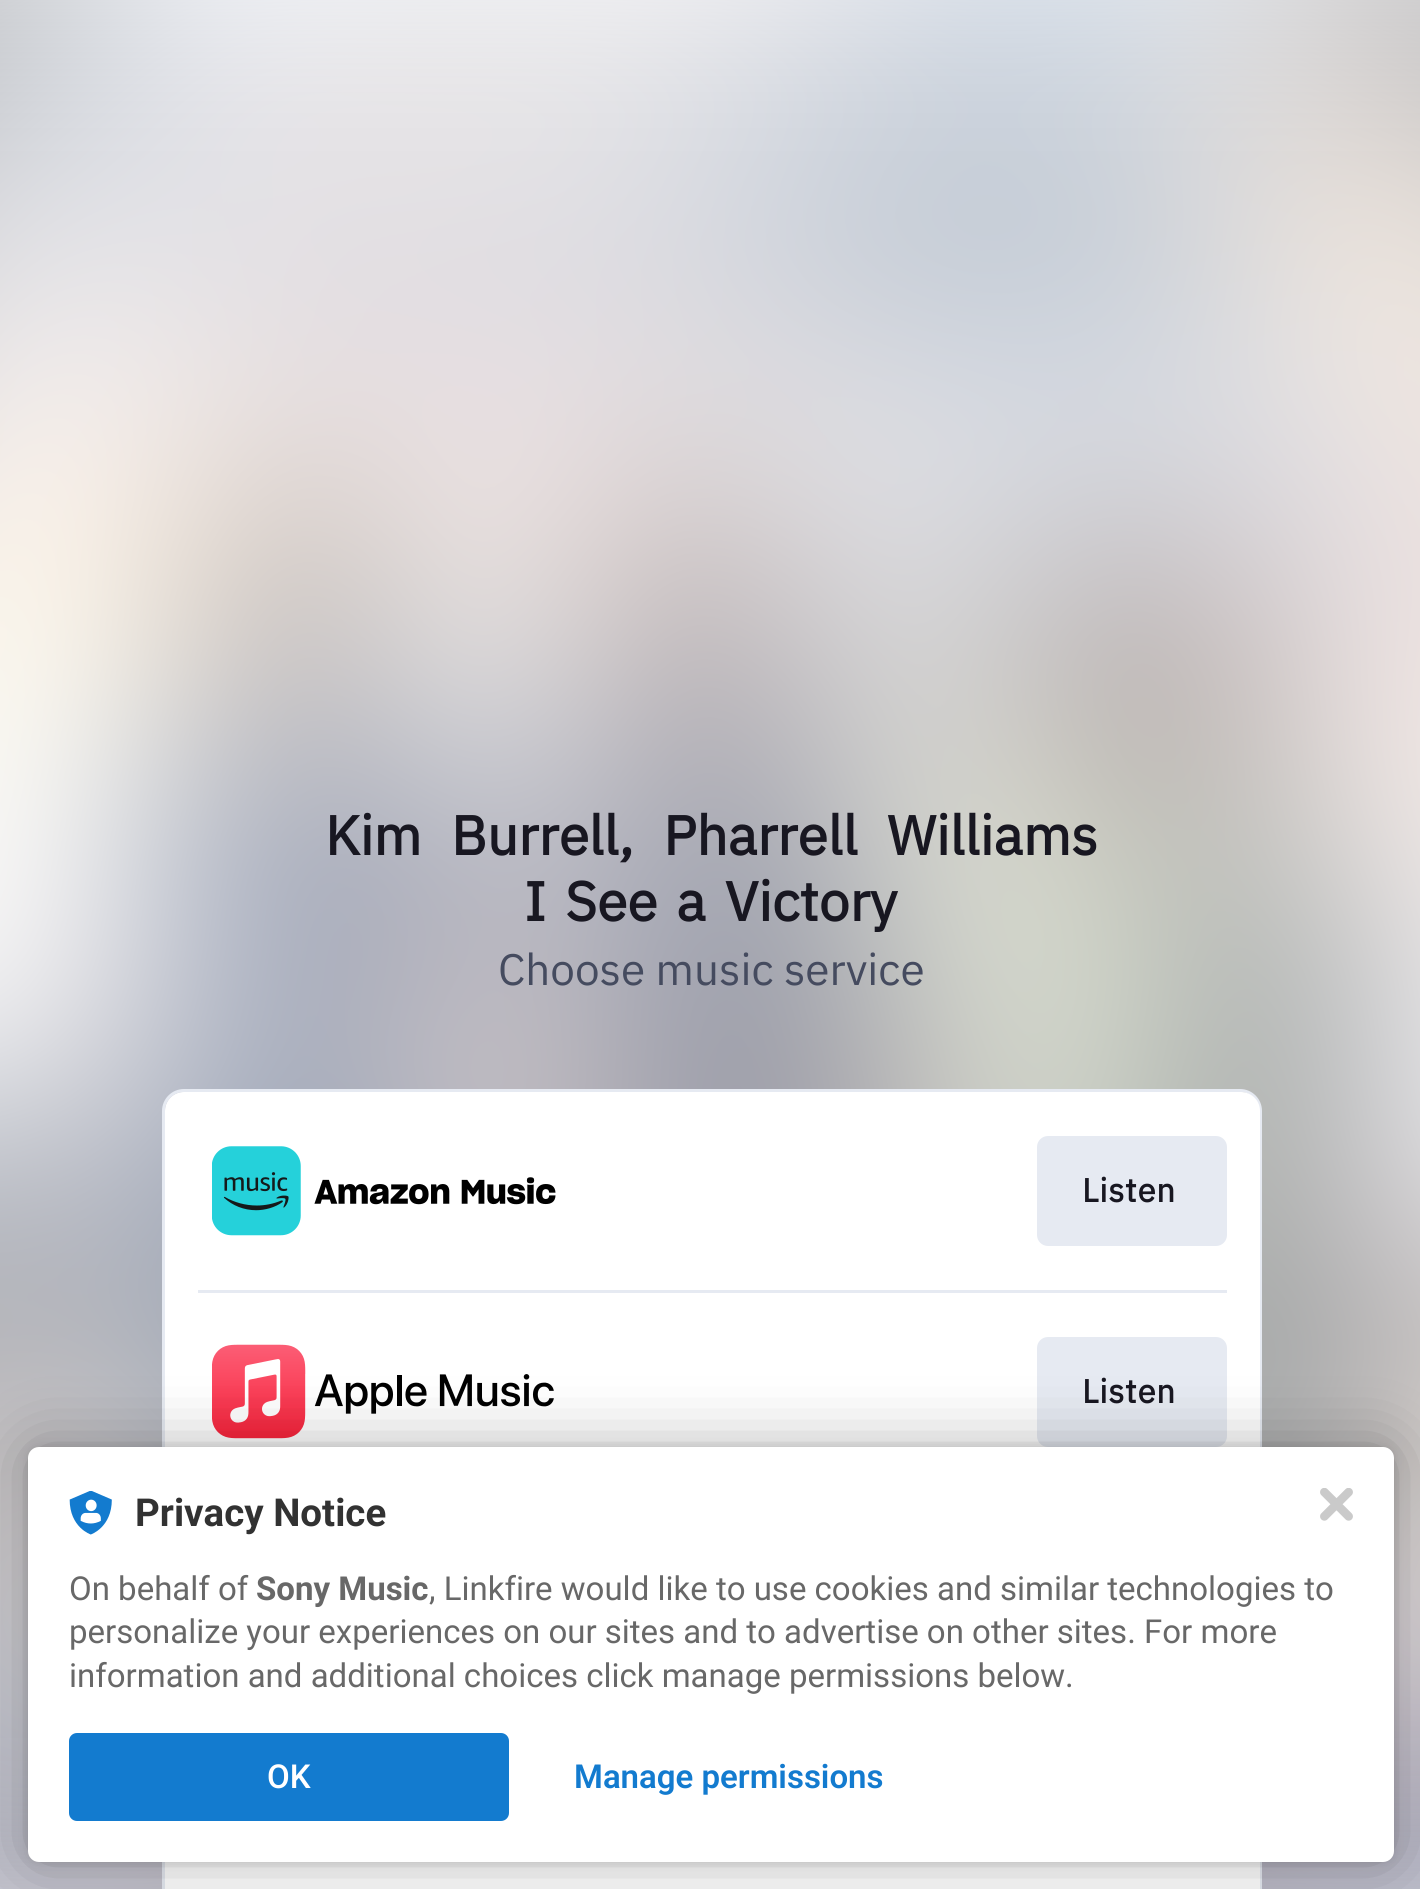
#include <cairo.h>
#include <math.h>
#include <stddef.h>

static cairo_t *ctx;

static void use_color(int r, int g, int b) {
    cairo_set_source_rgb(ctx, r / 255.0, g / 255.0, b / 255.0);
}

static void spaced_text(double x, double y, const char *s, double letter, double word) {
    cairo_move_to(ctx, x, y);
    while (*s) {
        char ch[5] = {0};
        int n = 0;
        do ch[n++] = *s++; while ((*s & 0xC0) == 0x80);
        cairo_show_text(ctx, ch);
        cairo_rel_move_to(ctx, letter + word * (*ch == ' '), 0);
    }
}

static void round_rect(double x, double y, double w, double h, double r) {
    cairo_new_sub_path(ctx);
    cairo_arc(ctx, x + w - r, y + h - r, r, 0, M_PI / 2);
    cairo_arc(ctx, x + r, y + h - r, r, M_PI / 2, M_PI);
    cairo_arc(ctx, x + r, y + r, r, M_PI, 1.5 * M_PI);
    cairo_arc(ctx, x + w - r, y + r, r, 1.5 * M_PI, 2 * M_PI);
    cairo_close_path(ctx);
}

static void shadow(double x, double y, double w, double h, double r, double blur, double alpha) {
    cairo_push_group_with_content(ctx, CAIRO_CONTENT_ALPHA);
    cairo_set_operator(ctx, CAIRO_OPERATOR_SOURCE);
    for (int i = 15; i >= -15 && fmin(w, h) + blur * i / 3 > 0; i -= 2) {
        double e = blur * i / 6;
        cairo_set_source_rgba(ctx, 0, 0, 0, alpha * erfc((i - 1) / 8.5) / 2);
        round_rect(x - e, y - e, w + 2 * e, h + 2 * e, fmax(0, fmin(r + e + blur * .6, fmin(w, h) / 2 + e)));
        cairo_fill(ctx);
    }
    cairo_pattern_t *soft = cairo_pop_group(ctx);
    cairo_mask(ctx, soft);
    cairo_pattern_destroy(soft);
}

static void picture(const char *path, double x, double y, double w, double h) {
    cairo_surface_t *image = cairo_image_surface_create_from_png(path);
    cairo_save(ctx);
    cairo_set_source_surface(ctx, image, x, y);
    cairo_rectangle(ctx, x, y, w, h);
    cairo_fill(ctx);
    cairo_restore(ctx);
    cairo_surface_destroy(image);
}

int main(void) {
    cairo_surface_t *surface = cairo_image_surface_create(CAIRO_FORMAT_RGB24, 1420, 1889);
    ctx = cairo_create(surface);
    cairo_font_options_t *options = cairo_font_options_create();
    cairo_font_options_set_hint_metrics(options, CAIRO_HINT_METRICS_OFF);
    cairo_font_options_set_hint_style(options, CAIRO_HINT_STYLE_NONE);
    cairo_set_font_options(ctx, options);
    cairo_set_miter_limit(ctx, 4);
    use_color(255, 255, 255);
    cairo_paint(ctx);
    picture("img1.png", 0, 0, 1420, 1889);
    cairo_select_font_face(ctx, "IBM Plex Sans", CAIRO_FONT_SLANT_NORMAL, CAIRO_FONT_WEIGHT_BOLD);
    cairo_set_font_size(ctx, 55);
    use_color(24, 23, 33);
    spaced_text(325, 855, "Kim Burrell, Pharrell Williams", 0, 16.5);
    spaced_text(524, 921, "I See a Victory", 0, 6);
    cairo_select_font_face(ctx, "IBM Plex Sans", CAIRO_FONT_SLANT_NORMAL, CAIRO_FONT_WEIGHT_NORMAL);
    cairo_set_font_size(ctx, 44);
    use_color(69, 75, 95);
    cairo_move_to(ctx, 498, 985);
    cairo_show_text(ctx, "Choose music service");
    round_rect(163.5, 1090.5, 1097, 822, 20.5);
    use_color(230, 234, 242);
    cairo_set_line_width(ctx, 3);
    cairo_stroke(ctx);
    use_color(255, 255, 255);
    round_rect(165, 1092, 1095, 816, 19);
    cairo_fill(ctx);
    picture("img2.png", 212, 1146, 344, 90);
    use_color(230, 234, 242);
    round_rect(1037, 1136, 190, 110, 11);
    cairo_fill(ctx);
    cairo_select_font_face(ctx, "IBM Plex Sans", CAIRO_FONT_SLANT_NORMAL, CAIRO_FONT_WEIGHT_BOLD);
    cairo_set_font_size(ctx, 33);
    use_color(24, 23, 33);
    spaced_text(1082, 1202, "Listen", 0.75, 0);
    use_color(230, 234, 242);
    cairo_rectangle(ctx, 198, 1290, 1029, 3);
    cairo_fill(ctx);
    picture("img3.png", 212, 1344, 342, 95);
    round_rect(1037, 1337, 190, 110, 11);
    cairo_fill(ctx);
    use_color(24, 23, 33);
    spaced_text(1082, 1403, "Listen", 0.75, 0);
    use_color(0, 0, 0);
    shadow(28, 1447, 1366, 415, 11, 5.5, 0.12);
    shadow(28, 1447, 1366, 415, 11, 33, 0.3);
    use_color(255, 255, 255);
    round_rect(28, 1447, 1366, 415, 11);
    cairo_fill(ctx);
    picture("img4.png", 69, 1491, 43, 44);
    cairo_select_font_face(ctx, "Roboto", CAIRO_FONT_SLANT_NORMAL, CAIRO_FONT_WEIGHT_BOLD);
    cairo_set_font_size(ctx, 38.5);
    use_color(50, 50, 50);
    cairo_move_to(ctx, 135, 1526);
    cairo_show_text(ctx, "Privacy Notice");
    cairo_select_font_face(ctx, "Roboto", CAIRO_FONT_SLANT_NORMAL, CAIRO_FONT_WEIGHT_NORMAL);
    cairo_set_font_size(ctx, 33);
    use_color(104, 104, 104);
    cairo_move_to(ctx, 69, 1600);
    cairo_show_text(ctx, "On behalf of");
    cairo_select_font_face(ctx, "Roboto", CAIRO_FONT_SLANT_NORMAL, CAIRO_FONT_WEIGHT_BOLD);
    cairo_move_to(ctx, 256, 1600);
    cairo_show_text(ctx, "Sony Music");
    cairo_select_font_face(ctx, "Roboto", CAIRO_FONT_SLANT_NORMAL, CAIRO_FONT_WEIGHT_NORMAL);
    cairo_move_to(ctx, 429, 1600);
    cairo_show_text(ctx, ", Linkfire would like to use cookies and similar technologies to");
    cairo_move_to(ctx, 69, 1643);
    cairo_show_text(ctx, "personalize your experiences on our sites and to advertise on other sites. For more");
    cairo_move_to(ctx, 69, 1687);
    cairo_show_text(ctx, "information and additional choices click manage permissions below.");
    use_color(19, 123, 207);
    round_rect(69, 1733, 440, 88, 8);
    cairo_fill(ctx);
    cairo_select_font_face(ctx, "Roboto Medium", CAIRO_FONT_SLANT_NORMAL, CAIRO_FONT_WEIGHT_NORMAL);
    use_color(255, 255, 255);
    cairo_move_to(ctx, 267, 1788);
    cairo_show_text(ctx, "OK");
    cairo_select_font_face(ctx, "Roboto SemiBold", CAIRO_FONT_SLANT_NORMAL, CAIRO_FONT_WEIGHT_NORMAL);
    use_color(19, 123, 207);
    cairo_move_to(ctx, 574, 1788);
    cairo_show_text(ctx, "Manage permissions");
    picture("img5.png", 1320, 1488, 33, 33);
    cairo_surface_write_to_png(surface, "result.png");
    cairo_font_options_destroy(options);
    cairo_destroy(ctx);
    cairo_surface_destroy(surface);
    return 0;
}
